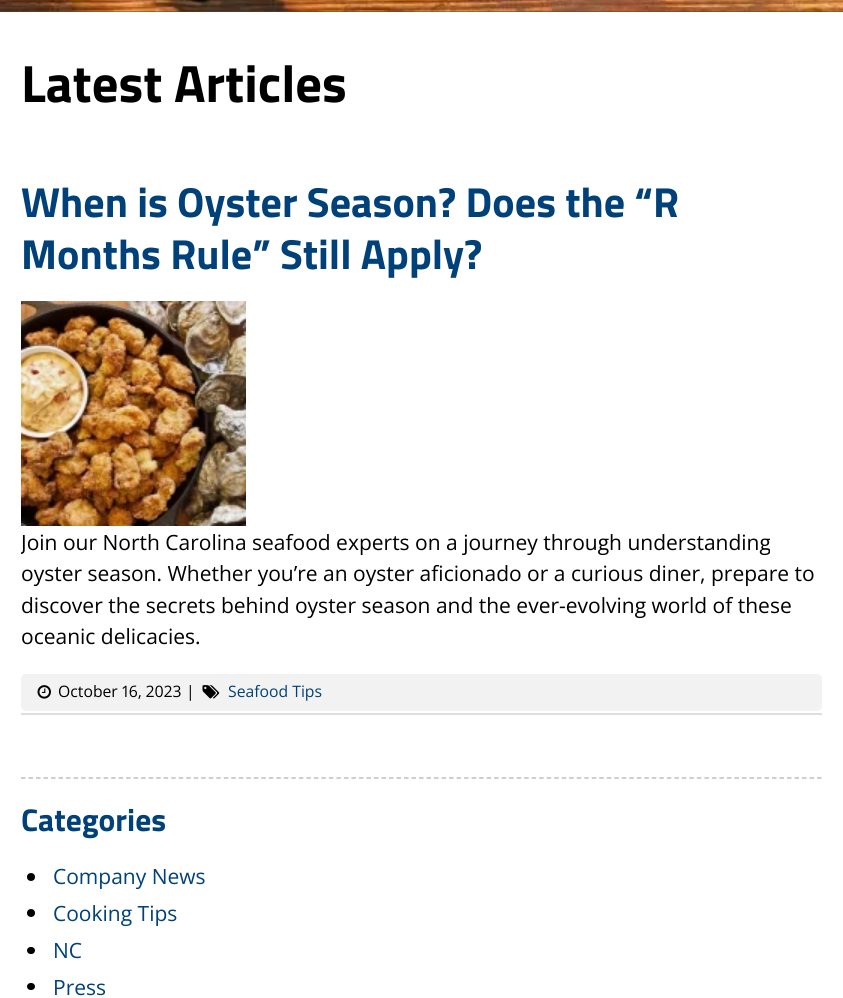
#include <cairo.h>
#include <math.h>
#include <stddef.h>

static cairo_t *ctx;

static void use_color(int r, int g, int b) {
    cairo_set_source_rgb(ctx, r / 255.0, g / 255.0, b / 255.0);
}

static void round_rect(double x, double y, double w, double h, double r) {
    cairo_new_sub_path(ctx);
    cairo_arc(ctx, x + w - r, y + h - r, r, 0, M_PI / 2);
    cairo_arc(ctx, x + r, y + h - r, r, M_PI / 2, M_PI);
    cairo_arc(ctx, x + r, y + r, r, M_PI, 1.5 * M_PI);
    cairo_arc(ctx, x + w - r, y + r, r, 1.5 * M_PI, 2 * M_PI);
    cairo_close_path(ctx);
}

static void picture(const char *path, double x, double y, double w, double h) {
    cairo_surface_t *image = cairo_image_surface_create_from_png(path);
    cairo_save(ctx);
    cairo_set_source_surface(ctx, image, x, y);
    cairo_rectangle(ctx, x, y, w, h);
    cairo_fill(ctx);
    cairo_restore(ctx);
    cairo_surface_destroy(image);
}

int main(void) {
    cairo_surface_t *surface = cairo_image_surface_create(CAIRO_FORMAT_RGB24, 843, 998);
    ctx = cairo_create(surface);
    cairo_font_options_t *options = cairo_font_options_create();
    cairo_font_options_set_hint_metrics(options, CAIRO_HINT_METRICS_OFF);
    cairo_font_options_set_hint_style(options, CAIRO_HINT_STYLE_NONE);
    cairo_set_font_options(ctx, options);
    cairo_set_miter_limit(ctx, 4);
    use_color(99, 71, 49);
    cairo_paint(ctx);
    picture("img1.png", 0, 0, 843, 12);
    use_color(255, 255, 255);
    cairo_rectangle(ctx, 0, 12, 843, 986);
    cairo_fill(ctx);
    cairo_new_path(ctx);
    cairo_move_to(ctx, 21, 778);
    cairo_line_to(ctx, 822, 778);
    use_color(191, 191, 191);
    cairo_set_line_width(ctx, 1.5);
    cairo_set_dash(ctx, (double[]){4.5, 3.01}, 2, 0);
    cairo_stroke(ctx);
    cairo_select_font_face(ctx, "Titillium Web", CAIRO_FONT_SLANT_NORMAL, CAIRO_FONT_WEIGHT_BOLD);
    cairo_set_font_size(ctx, 52.5);
    use_color(0, 0, 0);
    cairo_move_to(ctx, 21, 102);
    cairo_show_text(ctx, "Latest Articles");
    use_color(223, 223, 223);
    cairo_rectangle(ctx, 21, 713, 801, 2);
    cairo_fill(ctx);
    cairo_set_font_size(ctx, 42);
    use_color(0, 65, 122);
    cairo_move_to(ctx, 21, 217);
    cairo_show_text(ctx, "When is Oyster Season? Does the “R");
    cairo_move_to(ctx, 21, 269);
    cairo_show_text(ctx, "Months Rule” Still Apply?");
    picture("img2.png", 21, 301, 225, 225);
    cairo_save(ctx);
    cairo_rectangle(ctx, 21, 527, 801, 147);
    cairo_clip(ctx);
    cairo_select_font_face(ctx, "Open Sans", CAIRO_FONT_SLANT_NORMAL, CAIRO_FONT_WEIGHT_NORMAL);
    cairo_set_font_size(ctx, 21);
    use_color(0, 0, 0);
    cairo_move_to(ctx, 21, 550);
    cairo_show_text(ctx, "Join our North Carolina seafood experts on a journey through understanding");
    cairo_restore(ctx);
    cairo_select_font_face(ctx, "Open Sans", CAIRO_FONT_SLANT_NORMAL, CAIRO_FONT_WEIGHT_NORMAL);
    cairo_set_font_size(ctx, 21);
    use_color(0, 0, 0);
    cairo_move_to(ctx, 21, 581);
    cairo_show_text(ctx, "oyster season. Whether you’re an oyster aficionado or a curious diner, prepare to");
    cairo_move_to(ctx, 21, 613);
    cairo_show_text(ctx, "discover the secrets behind oyster season and the ever-evolving world of these");
    cairo_move_to(ctx, 21, 644);
    cairo_show_text(ctx, "oceanic delicacies.");
    use_color(242, 242, 242);
    round_rect(21, 674, 801, 37, 5);
    cairo_fill(ctx);
    picture("img3.png", 37, 685, 14, 14);
    cairo_select_font_face(ctx, "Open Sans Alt", CAIRO_FONT_SLANT_NORMAL, CAIRO_FONT_WEIGHT_NORMAL);
    cairo_set_font_size(ctx, 15.75);
    use_color(0, 0, 0);
    cairo_move_to(ctx, 58, 697);
    cairo_show_text(ctx, "October 16, 2023");
    cairo_select_font_face(ctx, "Open Sans", CAIRO_FONT_SLANT_NORMAL, CAIRO_FONT_WEIGHT_NORMAL);
    cairo_move_to(ctx, 186, 697);
    cairo_show_text(ctx, "|");
    picture("img4.png", 202, 685, 18, 14);
    use_color(0, 65, 122);
    cairo_move_to(ctx, 228, 697);
    cairo_show_text(ctx, "Seafood Tips");
    cairo_select_font_face(ctx, "Titillium Web", CAIRO_FONT_SLANT_NORMAL, CAIRO_FONT_WEIGHT_BOLD);
    cairo_set_font_size(ctx, 31.5);
    cairo_move_to(ctx, 21, 831);
    cairo_show_text(ctx, "Categories");
    use_color(0, 0, 0);
    cairo_new_path(ctx);
    cairo_arc(ctx, 31, 877, 4, 0, 2 * M_PI);
    cairo_fill(ctx);
    cairo_select_font_face(ctx, "Open Sans", CAIRO_FONT_SLANT_NORMAL, CAIRO_FONT_WEIGHT_NORMAL);
    cairo_set_font_size(ctx, 21);
    use_color(0, 65, 122);
    cairo_move_to(ctx, 53, 884);
    cairo_show_text(ctx, "Company News");
    use_color(0, 0, 0);
    cairo_new_path(ctx);
    cairo_arc(ctx, 31, 913, 4, 0, 2 * M_PI);
    cairo_fill(ctx);
    use_color(0, 65, 122);
    cairo_move_to(ctx, 53, 921);
    cairo_show_text(ctx, "Cooking Tips");
    use_color(0, 0, 0);
    round_rect(27, 947, 8, 7, 3.5);
    cairo_fill(ctx);
    use_color(0, 65, 122);
    cairo_move_to(ctx, 53, 958);
    cairo_show_text(ctx, "NC");
    use_color(0, 0, 0);
    round_rect(27, 983, 8, 7, 3.5);
    cairo_fill(ctx);
    use_color(0, 65, 122);
    cairo_move_to(ctx, 53, 995);
    cairo_show_text(ctx, "Press");
    cairo_surface_write_to_png(surface, "result.png");
    cairo_font_options_destroy(options);
    cairo_destroy(ctx);
    cairo_surface_destroy(surface);
    return 0;
}
